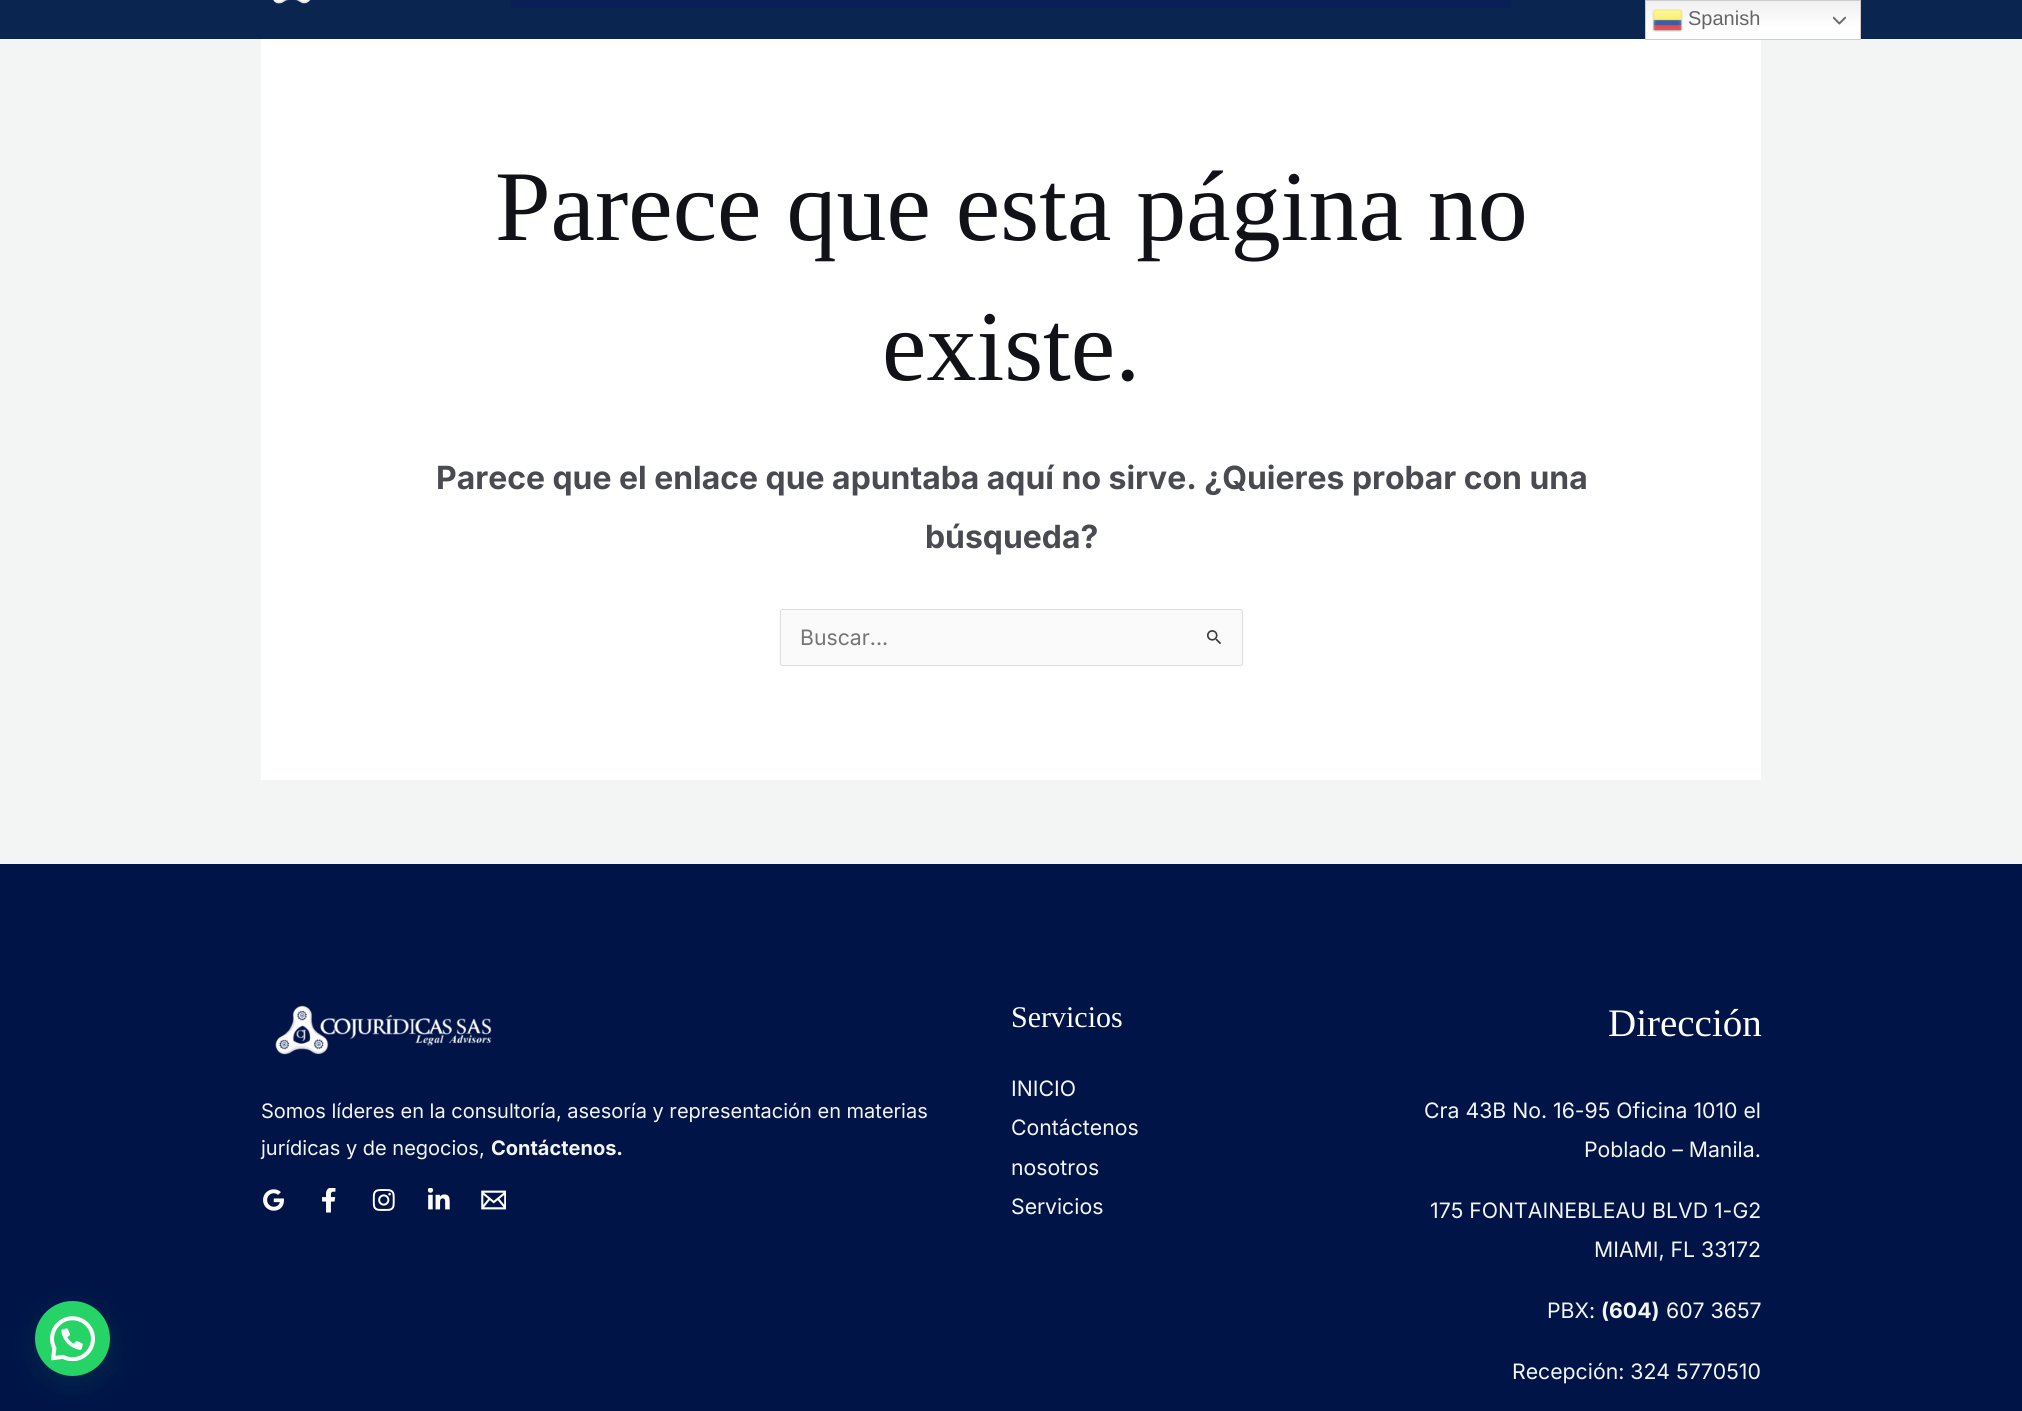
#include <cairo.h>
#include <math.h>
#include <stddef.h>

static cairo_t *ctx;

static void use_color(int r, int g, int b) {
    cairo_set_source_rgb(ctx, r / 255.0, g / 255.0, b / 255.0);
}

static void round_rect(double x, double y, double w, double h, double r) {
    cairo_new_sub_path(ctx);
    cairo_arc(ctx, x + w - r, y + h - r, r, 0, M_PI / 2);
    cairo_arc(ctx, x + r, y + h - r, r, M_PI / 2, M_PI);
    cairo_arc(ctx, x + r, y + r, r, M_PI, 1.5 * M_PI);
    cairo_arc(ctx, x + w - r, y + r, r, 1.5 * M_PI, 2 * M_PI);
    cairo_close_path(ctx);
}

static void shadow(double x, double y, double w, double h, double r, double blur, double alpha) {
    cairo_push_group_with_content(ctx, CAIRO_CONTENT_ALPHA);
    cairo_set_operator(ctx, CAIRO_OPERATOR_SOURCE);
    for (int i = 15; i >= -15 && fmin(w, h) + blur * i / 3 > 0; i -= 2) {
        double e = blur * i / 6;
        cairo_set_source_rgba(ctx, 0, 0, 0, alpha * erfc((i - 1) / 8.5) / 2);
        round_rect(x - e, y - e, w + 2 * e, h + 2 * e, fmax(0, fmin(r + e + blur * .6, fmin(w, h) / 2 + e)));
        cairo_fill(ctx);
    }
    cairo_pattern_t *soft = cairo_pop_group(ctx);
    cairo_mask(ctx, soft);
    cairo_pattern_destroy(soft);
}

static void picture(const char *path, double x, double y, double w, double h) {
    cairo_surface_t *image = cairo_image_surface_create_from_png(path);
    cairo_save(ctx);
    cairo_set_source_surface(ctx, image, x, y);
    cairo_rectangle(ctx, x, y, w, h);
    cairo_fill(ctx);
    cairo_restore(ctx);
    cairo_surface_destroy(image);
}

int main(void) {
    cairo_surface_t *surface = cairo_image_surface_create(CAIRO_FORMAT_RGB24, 2022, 1411);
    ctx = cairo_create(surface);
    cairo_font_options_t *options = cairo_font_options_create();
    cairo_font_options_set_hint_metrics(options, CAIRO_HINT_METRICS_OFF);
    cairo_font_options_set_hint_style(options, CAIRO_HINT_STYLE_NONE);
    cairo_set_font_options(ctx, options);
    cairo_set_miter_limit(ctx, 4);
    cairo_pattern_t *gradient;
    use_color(243, 245, 245);
    cairo_paint(ctx);
    use_color(11, 37, 81);
    cairo_rectangle(ctx, 0, 0, 2022, 39);
    cairo_fill(ctx);
    gradient = cairo_pattern_create_linear(1753, 0, 1753, 40);
    cairo_pattern_add_color_stop_rgba(gradient, 0, 0.937, 0.937, 0.937, 1);
    cairo_pattern_add_color_stop_rgba(gradient, 0.7, 1, 1, 1, 1);
    cairo_set_source(ctx, gradient);
    cairo_pattern_destroy(gradient);
    cairo_rectangle(ctx, 1646, 1, 214, 38);
    cairo_fill(ctx);
    use_color(255, 255, 255);
    cairo_rectangle(ctx, 261, 39, 1500, 741);
    cairo_fill(ctx);
    cairo_rectangle(ctx, 1645.5, 0.5, 215, 39);
    use_color(204, 204, 204);
    cairo_set_line_width(ctx, 1);
    cairo_stroke(ctx);
    picture("img1.png", 1652, 9, 31, 23);
    cairo_select_font_face(ctx, "Liberation Sans", CAIRO_FONT_SLANT_NORMAL, CAIRO_FONT_WEIGHT_NORMAL);
    cairo_set_font_size(ctx, 20);
    use_color(102, 102, 102);
    cairo_move_to(ctx, 1688, 25);
    cairo_show_text(ctx, "Spanish");
    picture("img2.png", 1833, 16, 13, 9);
    use_color(0, 20, 71);
    cairo_rectangle(ctx, 0, 864, 2022, 547);
    cairo_fill(ctx);
    use_color(7, 94, 84);
    shadow(36, 1309, 75, 75, 37.5, 15, 0.24);
    use_color(37, 211, 102);
    cairo_arc(ctx, 72.5, 1338.5, 37.5, 0, 2 * M_PI);
    cairo_fill(ctx);
    picture("img3.png", 50, 1316, 45, 45);
    picture("img4.png", 273, 0, 38, 4);
    use_color(8, 31, 88);
    cairo_rectangle(ctx, 511, 0, 1000, 8);
    cairo_fill(ctx);
    cairo_select_font_face(ctx, "Liberation Serif", CAIRO_FONT_SLANT_NORMAL, CAIRO_FONT_WEIGHT_NORMAL);
    cairo_set_font_size(ctx, 100);
    use_color(16, 18, 24);
    cairo_move_to(ctx, 495, 240);
    cairo_show_text(ctx, "Parece que esta página no");
    cairo_move_to(ctx, 882, 380);
    cairo_show_text(ctx, "existe.");
    cairo_select_font_face(ctx, "Inter", CAIRO_FONT_SLANT_NORMAL, CAIRO_FONT_WEIGHT_BOLD);
    cairo_set_font_size(ctx, 31.9);
    use_color(73, 75, 81);
    cairo_move_to(ctx, 436, 489);
    cairo_show_text(ctx, "Parece que el enlace que apuntaba aquí no sirve. ¿Quieres probar con una");
    cairo_move_to(ctx, 925, 548);
    cairo_show_text(ctx, "búsqueda?");
    use_color(250, 250, 250);
    round_rect(780.5, 609.5, 462, 56, 2);
    cairo_fill_preserve(ctx);
    use_color(221, 221, 221);
    cairo_stroke(ctx);
    cairo_select_font_face(ctx, "Inter", CAIRO_FONT_SLANT_NORMAL, CAIRO_FONT_WEIGHT_NORMAL);
    cairo_set_font_size(ctx, 21.25);
    use_color(117, 117, 117);
    cairo_move_to(ctx, 800, 645);
    cairo_show_text(ctx, "Buscar...");
    picture("img5.png", 1207, 630, 14, 15);
    picture("img6.png", 275, 1005, 217, 50);
    cairo_set_font_size(ctx, 20);
    use_color(243, 245, 245);
    cairo_move_to(ctx, 261, 1118);
    cairo_show_text(ctx, "Somos líderes en la consultoría, asesoría y representación en materias");
    cairo_move_to(ctx, 261, 1155);
    cairo_show_text(ctx, "jurídicas y de negocios,");
    cairo_select_font_face(ctx, "Inter", CAIRO_FONT_SLANT_NORMAL, CAIRO_FONT_WEIGHT_BOLD);
    cairo_move_to(ctx, 491, 1155);
    cairo_show_text(ctx, "Contáctenos.");
    picture("img7.png", 263, 1189, 21, 22);
    picture("img8.png", 322, 1188, 14, 25);
    picture("img9.png", 372, 1189, 23, 22);
    picture("img10.png", 427, 1188, 23, 22);
    picture("img11.png", 481, 1190, 25, 20);
    cairo_select_font_face(ctx, "Liberation Serif", CAIRO_FONT_SLANT_NORMAL, CAIRO_FONT_WEIGHT_NORMAL);
    cairo_set_font_size(ctx, 30);
    use_color(255, 255, 255);
    cairo_move_to(ctx, 1011, 1027);
    cairo_show_text(ctx, "Servicios");
    cairo_select_font_face(ctx, "Inter", CAIRO_FONT_SLANT_NORMAL, CAIRO_FONT_WEIGHT_NORMAL);
    cairo_set_font_size(ctx, 21.25);
    use_color(243, 245, 245);
    cairo_move_to(ctx, 1011, 1096);
    cairo_show_text(ctx, "INICIO");
    cairo_move_to(ctx, 1011, 1135);
    cairo_show_text(ctx, "Contáctenos");
    cairo_move_to(ctx, 1011, 1175);
    cairo_show_text(ctx, "nosotros");
    cairo_move_to(ctx, 1011, 1214);
    cairo_show_text(ctx, "Servicios");
    cairo_select_font_face(ctx, "Liberation Serif", CAIRO_FONT_SLANT_NORMAL, CAIRO_FONT_WEIGHT_NORMAL);
    cairo_set_font_size(ctx, 39);
    use_color(255, 255, 255);
    cairo_move_to(ctx, 1608, 1036);
    cairo_show_text(ctx, "Dirección");
    cairo_select_font_face(ctx, "Inter", CAIRO_FONT_SLANT_NORMAL, CAIRO_FONT_WEIGHT_NORMAL);
    cairo_set_font_size(ctx, 21.25);
    use_color(243, 245, 245);
    cairo_move_to(ctx, 1424, 1118);
    cairo_show_text(ctx, "Cra 43B No. 16-95 Oficina 1010 el");
    cairo_move_to(ctx, 1584, 1157);
    cairo_show_text(ctx, "Poblado – Manila.");
    cairo_move_to(ctx, 1430, 1218);
    cairo_show_text(ctx, "175 FONTAINEBLEAU BLVD 1-G2");
    cairo_move_to(ctx, 1594, 1257);
    cairo_show_text(ctx, "MIAMI, FL 33172");
    cairo_move_to(ctx, 1547, 1318);
    cairo_show_text(ctx, "PBX:");
    cairo_select_font_face(ctx, "Inter", CAIRO_FONT_SLANT_NORMAL, CAIRO_FONT_WEIGHT_BOLD);
    cairo_move_to(ctx, 1601, 1318);
    cairo_show_text(ctx, "(604)");
    cairo_select_font_face(ctx, "Inter", CAIRO_FONT_SLANT_NORMAL, CAIRO_FONT_WEIGHT_NORMAL);
    cairo_move_to(ctx, 1666, 1318);
    cairo_show_text(ctx, "607 3657");
    cairo_move_to(ctx, 1512, 1379);
    cairo_show_text(ctx, "Recepción: 324 5770510");
    cairo_surface_write_to_png(surface, "result.png");
    cairo_font_options_destroy(options);
    cairo_destroy(ctx);
    cairo_surface_destroy(surface);
    return 0;
}
